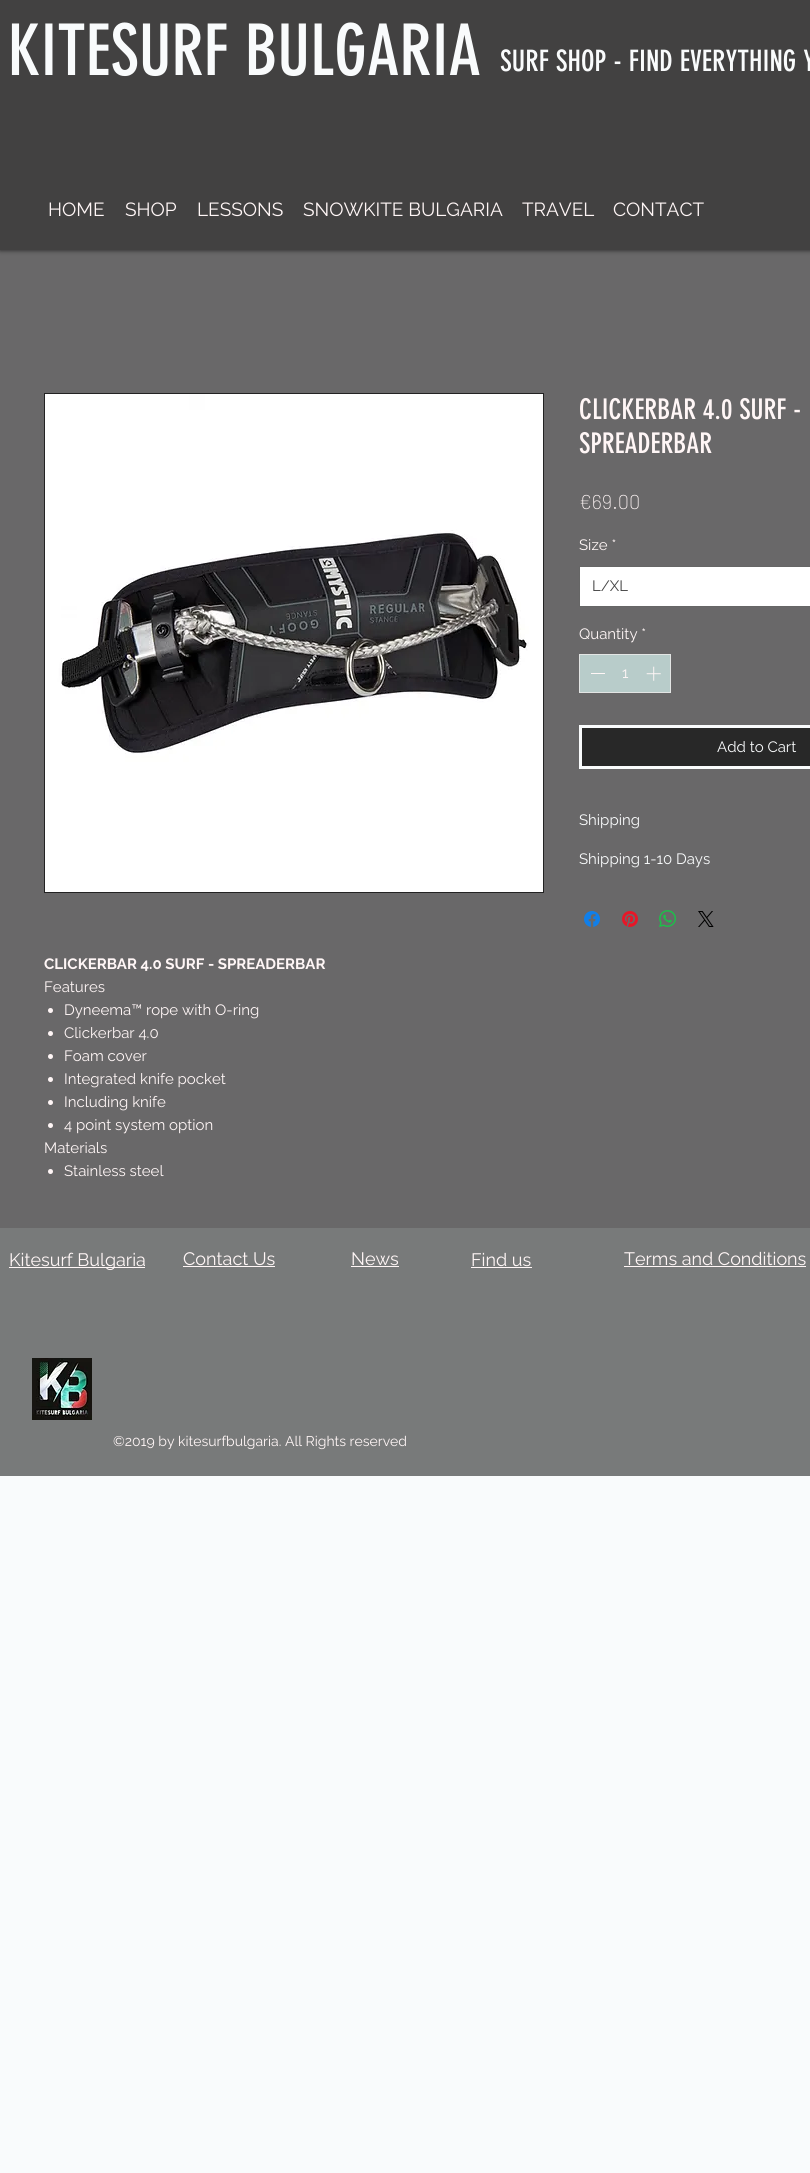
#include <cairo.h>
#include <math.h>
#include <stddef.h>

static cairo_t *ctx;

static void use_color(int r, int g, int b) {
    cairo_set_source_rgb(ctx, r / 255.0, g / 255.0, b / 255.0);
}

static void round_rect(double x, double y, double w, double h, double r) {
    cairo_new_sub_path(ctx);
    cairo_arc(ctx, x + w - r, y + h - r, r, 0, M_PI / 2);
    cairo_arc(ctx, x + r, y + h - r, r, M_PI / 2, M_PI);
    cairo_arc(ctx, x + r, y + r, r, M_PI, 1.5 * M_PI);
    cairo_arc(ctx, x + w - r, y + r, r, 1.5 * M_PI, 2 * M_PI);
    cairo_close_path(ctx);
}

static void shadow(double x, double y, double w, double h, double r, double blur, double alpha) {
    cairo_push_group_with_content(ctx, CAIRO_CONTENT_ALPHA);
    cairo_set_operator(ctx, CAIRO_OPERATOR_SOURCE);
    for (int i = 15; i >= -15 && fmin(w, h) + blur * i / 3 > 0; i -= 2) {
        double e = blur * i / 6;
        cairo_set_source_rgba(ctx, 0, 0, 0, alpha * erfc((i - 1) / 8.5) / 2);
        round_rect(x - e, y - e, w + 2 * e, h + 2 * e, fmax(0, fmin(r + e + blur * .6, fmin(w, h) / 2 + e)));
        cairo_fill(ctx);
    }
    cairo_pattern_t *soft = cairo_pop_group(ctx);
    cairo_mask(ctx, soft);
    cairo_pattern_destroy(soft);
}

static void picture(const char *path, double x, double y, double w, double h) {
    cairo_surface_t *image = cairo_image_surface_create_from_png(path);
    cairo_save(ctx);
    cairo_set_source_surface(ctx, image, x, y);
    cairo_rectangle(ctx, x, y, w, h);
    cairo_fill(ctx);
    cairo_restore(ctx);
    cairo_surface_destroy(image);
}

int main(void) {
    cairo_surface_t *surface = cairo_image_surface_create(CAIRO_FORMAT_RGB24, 810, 2173);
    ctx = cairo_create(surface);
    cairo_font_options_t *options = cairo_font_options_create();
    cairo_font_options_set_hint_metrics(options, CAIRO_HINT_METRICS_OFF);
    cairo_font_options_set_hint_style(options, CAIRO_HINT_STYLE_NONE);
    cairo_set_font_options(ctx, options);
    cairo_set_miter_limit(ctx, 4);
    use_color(249, 251, 252);
    cairo_paint(ctx);
    use_color(105, 104, 105);
    cairo_rectangle(ctx, 0, 250, 810, 978);
    cairo_fill(ctx);
    use_color(0, 0, 0);
    shadow(0, 0, 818, 250, 0, 2.5, 0.7);
    use_color(66, 65, 65);
    cairo_rectangle(ctx, 0, 0, 810, 250);
    cairo_fill(ctx);
    cairo_select_font_face(ctx, "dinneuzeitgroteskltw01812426", CAIRO_FONT_SLANT_NORMAL, CAIRO_FONT_WEIGHT_NORMAL);
    cairo_set_font_size(ctx, 70);
    use_color(249, 251, 252);
    cairo_move_to(ctx, 8, 75);
    cairo_show_text(ctx, "KITESURF BULGARIA");
    cairo_set_font_size(ctx, 29);
    cairo_move_to(ctx, 500, 71);
    cairo_show_text(ctx, "SURF SHOP - FIND EVERYTHING Y");
    cairo_select_font_face(ctx, "Raleway", CAIRO_FONT_SLANT_NORMAL, CAIRO_FONT_WEIGHT_NORMAL);
    cairo_set_font_size(ctx, 19);
    use_color(255, 246, 246);
    cairo_move_to(ctx, 48, 216);
    cairo_show_text(ctx, "HOME");
    cairo_move_to(ctx, 125, 216);
    cairo_show_text(ctx, "SHOP");
    cairo_move_to(ctx, 197, 216);
    cairo_show_text(ctx, "LESSONS");
    cairo_move_to(ctx, 303, 216);
    cairo_show_text(ctx, "SNOWKITE BULGARIA");
    cairo_move_to(ctx, 522, 216);
    cairo_show_text(ctx, "TRAVEL");
    cairo_move_to(ctx, 613, 216);
    cairo_show_text(ctx, "CONTACT");
    cairo_select_font_face(ctx, "dinneuzeitgroteskltw01812426", CAIRO_FONT_SLANT_NORMAL, CAIRO_FONT_WEIGHT_NORMAL);
    cairo_set_font_size(ctx, 28);
    cairo_move_to(ctx, 579, 419);
    cairo_show_text(ctx, "CLICKERBAR 4.0 SURF -");
    cairo_move_to(ctx, 579, 453);
    cairo_show_text(ctx, "SPREADERBAR");
    cairo_select_font_face(ctx, "Barlow ExtraLight", CAIRO_FONT_SLANT_NORMAL, CAIRO_FONT_WEIGHT_NORMAL);
    cairo_set_font_size(ctx, 20);
    cairo_move_to(ctx, 579, 509);
    cairo_show_text(ctx, "€69.00");
    cairo_select_font_face(ctx, "Raleway", CAIRO_FONT_SLANT_NORMAL, CAIRO_FONT_WEIGHT_NORMAL);
    cairo_set_font_size(ctx, 15);
    cairo_move_to(ctx, 579, 550);
    cairo_show_text(ctx, "Size *");
    use_color(255, 255, 255);
    cairo_rectangle(ctx, 579.5, 566.5, 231, 40);
    cairo_fill_preserve(ctx);
    use_color(102, 102, 102);
    cairo_set_line_width(ctx, 1);
    cairo_stroke(ctx);
    use_color(68, 68, 68);
    cairo_move_to(ctx, 592, 591);
    cairo_show_text(ctx, "L/XL");
    use_color(255, 246, 246);
    cairo_move_to(ctx, 579, 639);
    cairo_show_text(ctx, "Quantity *");
    use_color(184, 204, 202);
    cairo_rectangle(ctx, 579.5, 654.5, 91, 38);
    cairo_fill_preserve(ctx);
    use_color(227, 229, 228);
    cairo_stroke(ctx);
    use_color(255, 246, 246);
    cairo_rectangle(ctx, 591, 673, 14, 1);
    cairo_fill(ctx);
    cairo_move_to(ctx, 622, 678);
    cairo_show_text(ctx, "1");
    picture("img1.png", 646, 666, 15, 15);
    use_color(40, 40, 40);
    cairo_rectangle(ctx, 580.5, 726.5, 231, 41);
    cairo_fill_preserve(ctx);
    use_color(249, 251, 252);
    cairo_set_line_width(ctx, 3);
    cairo_stroke(ctx);
    cairo_move_to(ctx, 717, 752);
    cairo_show_text(ctx, "Add to Cart");
    cairo_move_to(ctx, 579, 825);
    cairo_show_text(ctx, "Shipping");
    cairo_move_to(ctx, 579, 864);
    cairo_show_text(ctx, "Shipping 1-10 Days");
    picture("img2.png", 584, 911, 16, 16);
    picture("img3.png", 622, 911, 16, 16);
    picture("img4.png", 659, 910, 17, 17);
    picture("img5.png", 698, 911, 16, 16);
    cairo_rectangle(ctx, 44.5, 393.5, 499, 499);
    use_color(34, 34, 34);
    cairo_set_line_width(ctx, 1);
    cairo_stroke(ctx);
    picture("img6.png", 45, 394, 498, 498);
    cairo_select_font_face(ctx, "Raleway", CAIRO_FONT_SLANT_NORMAL, CAIRO_FONT_WEIGHT_BOLD);
    use_color(255, 246, 246);
    cairo_move_to(ctx, 44, 969);
    cairo_show_text(ctx, "CLICKERBAR 4.0 SURF - SPREADERBAR");
    cairo_select_font_face(ctx, "Raleway", CAIRO_FONT_SLANT_NORMAL, CAIRO_FONT_WEIGHT_NORMAL);
    cairo_move_to(ctx, 44, 992);
    cairo_show_text(ctx, "Features");
    cairo_new_path(ctx);
    cairo_arc(ctx, 50.5, 1010.5, 2.5, 0, 2 * M_PI);
    cairo_fill(ctx);
    cairo_move_to(ctx, 64, 1015);
    cairo_show_text(ctx, "Dyneema™ rope with O-ring");
    cairo_new_path(ctx);
    cairo_arc(ctx, 50.5, 1033.5, 2.5, 0, 2 * M_PI);
    cairo_fill(ctx);
    cairo_move_to(ctx, 64, 1038);
    cairo_show_text(ctx, "Clickerbar 4.0");
    cairo_new_path(ctx);
    cairo_arc(ctx, 50.5, 1056.5, 2.5, 0, 2 * M_PI);
    cairo_fill(ctx);
    cairo_move_to(ctx, 64, 1061);
    cairo_show_text(ctx, "Foam cover");
    cairo_new_path(ctx);
    cairo_arc(ctx, 50.5, 1079.5, 2.5, 0, 2 * M_PI);
    cairo_fill(ctx);
    cairo_move_to(ctx, 64, 1084);
    cairo_show_text(ctx, "Integrated knife pocket");
    cairo_new_path(ctx);
    cairo_arc(ctx, 50.5, 1102.5, 2.5, 0, 2 * M_PI);
    cairo_fill(ctx);
    cairo_move_to(ctx, 64, 1107);
    cairo_show_text(ctx, "Including knife");
    cairo_new_path(ctx);
    cairo_arc(ctx, 50.5, 1125.5, 2.5, 0, 2 * M_PI);
    cairo_fill(ctx);
    cairo_move_to(ctx, 64, 1130);
    cairo_show_text(ctx, "4 point system option");
    cairo_move_to(ctx, 44, 1153);
    cairo_show_text(ctx, "Materials");
    cairo_new_path(ctx);
    cairo_arc(ctx, 50.5, 1171.5, 2.5, 0, 2 * M_PI);
    cairo_fill(ctx);
    cairo_move_to(ctx, 64, 1176);
    cairo_show_text(ctx, "Stainless steel");
    use_color(120, 122, 122);
    cairo_rectangle(ctx, 0, 1228, 810, 248);
    cairo_fill(ctx);
    use_color(255, 246, 246);
    cairo_rectangle(ctx, 9, 1267, 136, 1);
    cairo_fill(ctx);
    cairo_set_font_size(ctx, 18);
    cairo_move_to(ctx, 9, 1266);
    cairo_show_text(ctx, "Kitesurf Bulgaria");
    cairo_move_to(ctx, 183, 1265);
    cairo_show_text(ctx, "Contact Us");
    cairo_rectangle(ctx, 183, 1266, 92, 1);
    cairo_fill(ctx);
    cairo_move_to(ctx, 351, 1265);
    cairo_show_text(ctx, "News");
    cairo_rectangle(ctx, 351, 1266, 48, 1);
    cairo_fill(ctx);
    cairo_move_to(ctx, 471, 1266);
    cairo_show_text(ctx, "Find us");
    cairo_rectangle(ctx, 471, 1267, 61, 1);
    cairo_fill(ctx);
    cairo_move_to(ctx, 624, 1265);
    cairo_show_text(ctx, "Terms and Conditions");
    cairo_rectangle(ctx, 624, 1266, 182, 1);
    cairo_fill(ctx);
    picture("img7.png", 32, 1358, 60, 62);
    cairo_set_font_size(ctx, 14);
    cairo_move_to(ctx, 113, 1446);
    cairo_show_text(ctx, "©2019 by kitesurfbulgaria. All Rights reserved");
    cairo_surface_write_to_png(surface, "result.png");
    cairo_font_options_destroy(options);
    cairo_destroy(ctx);
    cairo_surface_destroy(surface);
    return 0;
}
